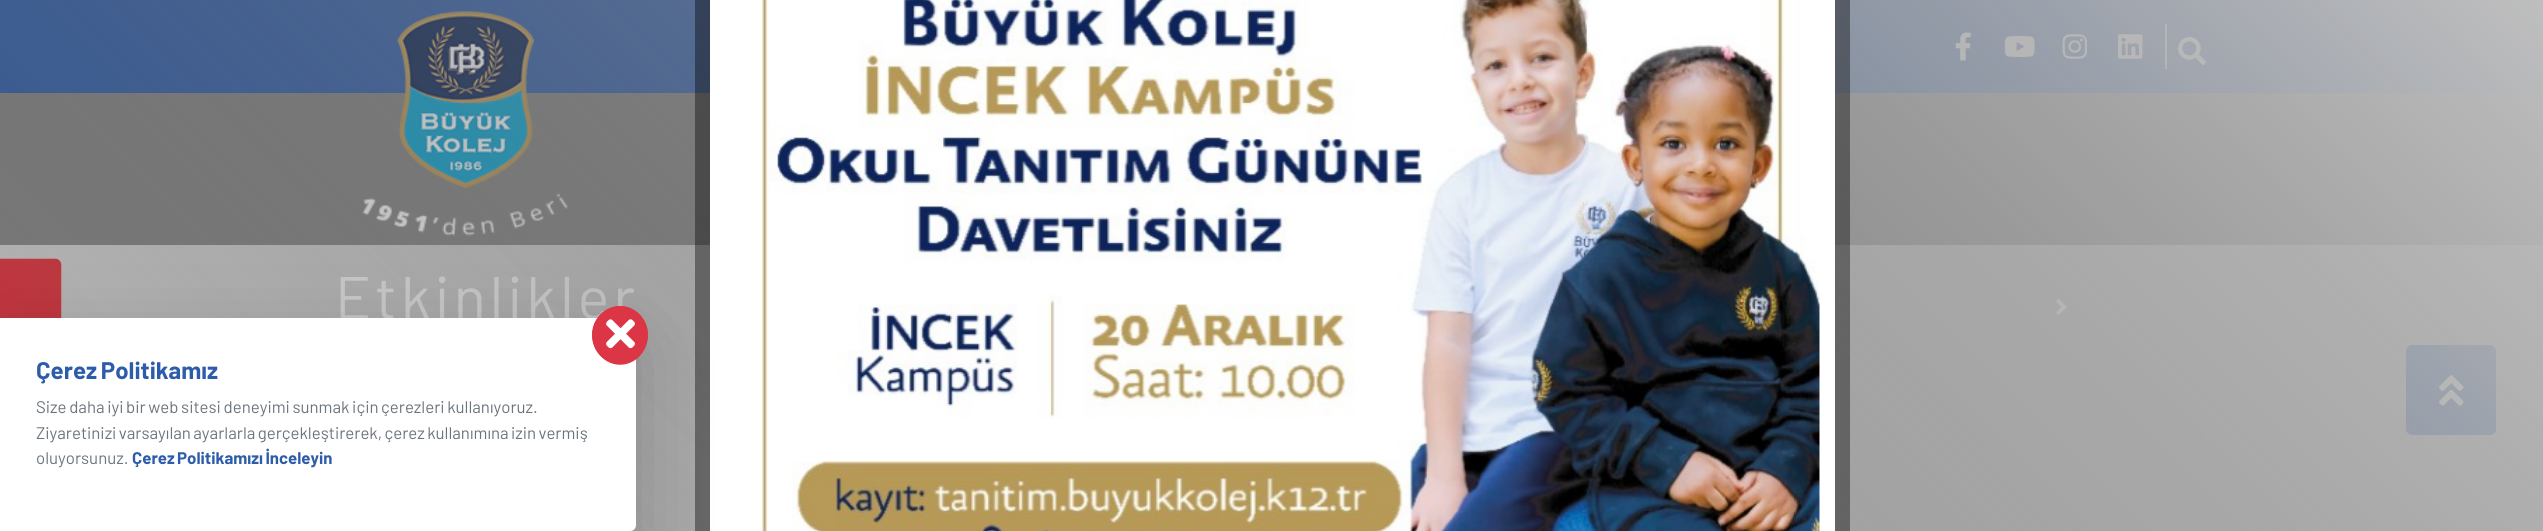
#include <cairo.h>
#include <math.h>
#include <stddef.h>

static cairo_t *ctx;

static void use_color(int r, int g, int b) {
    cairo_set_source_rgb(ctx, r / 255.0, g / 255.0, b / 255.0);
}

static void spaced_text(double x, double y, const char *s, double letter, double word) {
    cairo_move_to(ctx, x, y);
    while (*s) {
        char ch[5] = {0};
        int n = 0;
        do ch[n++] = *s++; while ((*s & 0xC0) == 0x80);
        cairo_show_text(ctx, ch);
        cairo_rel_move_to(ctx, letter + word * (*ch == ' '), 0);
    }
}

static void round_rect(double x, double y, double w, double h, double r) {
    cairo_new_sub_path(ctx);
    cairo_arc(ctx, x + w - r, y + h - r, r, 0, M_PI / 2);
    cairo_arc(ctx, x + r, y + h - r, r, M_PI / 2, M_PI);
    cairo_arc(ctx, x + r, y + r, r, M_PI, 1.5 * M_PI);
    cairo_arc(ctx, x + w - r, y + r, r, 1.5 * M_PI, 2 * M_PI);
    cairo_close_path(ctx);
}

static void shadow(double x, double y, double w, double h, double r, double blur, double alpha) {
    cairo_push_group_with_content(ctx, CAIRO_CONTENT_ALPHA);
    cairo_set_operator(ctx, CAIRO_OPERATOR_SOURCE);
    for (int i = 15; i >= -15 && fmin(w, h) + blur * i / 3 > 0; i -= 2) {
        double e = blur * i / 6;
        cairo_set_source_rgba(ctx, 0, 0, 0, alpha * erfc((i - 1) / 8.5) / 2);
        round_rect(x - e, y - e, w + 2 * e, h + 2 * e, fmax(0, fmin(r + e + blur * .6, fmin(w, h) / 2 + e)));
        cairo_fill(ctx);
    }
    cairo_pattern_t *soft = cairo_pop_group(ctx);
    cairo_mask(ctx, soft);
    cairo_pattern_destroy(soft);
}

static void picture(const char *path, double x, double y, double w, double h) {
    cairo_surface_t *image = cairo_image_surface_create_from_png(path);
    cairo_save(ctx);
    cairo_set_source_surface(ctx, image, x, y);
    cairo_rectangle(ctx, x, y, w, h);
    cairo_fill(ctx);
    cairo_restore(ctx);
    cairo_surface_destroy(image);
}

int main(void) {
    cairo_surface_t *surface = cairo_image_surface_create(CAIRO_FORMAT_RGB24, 2543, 531);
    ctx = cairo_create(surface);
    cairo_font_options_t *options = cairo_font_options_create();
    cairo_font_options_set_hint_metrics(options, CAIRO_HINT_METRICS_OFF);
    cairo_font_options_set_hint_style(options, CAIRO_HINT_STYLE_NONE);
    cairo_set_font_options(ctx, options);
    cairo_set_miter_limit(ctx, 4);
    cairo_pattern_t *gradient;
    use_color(255, 255, 255);
    cairo_paint(ctx);
    gradient = cairo_pattern_create_linear(510, 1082, 2034, -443);
    cairo_pattern_add_color_stop_rgba(gradient, 0, 0.843, 0.843, 0.843, 1);
    cairo_pattern_add_color_stop_rgba(gradient, 1, 0.749, 0.749, 0.749, 1);
    cairo_set_source(ctx, gradient);
    cairo_pattern_destroy(gradient);
    cairo_rectangle(ctx, 0, 245, 2543, 286);
    cairo_fill(ctx);
    use_color(230, 43, 55);
    cairo_new_path(ctx);
    cairo_move_to(ctx, -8, 441);
    cairo_line_to(ctx, -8, 265);
    cairo_curve_to(ctx, -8, 262, -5, 259, -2, 259);
    cairo_line_to(ctx, 55, 259);
    cairo_curve_to(ctx, 59, 259, 61, 262, 61, 265);
    cairo_line_to(ctx, 61, 441);
    cairo_curve_to(ctx, 61, 445, 59, 447, 55, 447);
    cairo_line_to(ctx, -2, 447);
    cairo_curve_to(ctx, -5, 447, -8, 445, -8, 441);
    cairo_close_path(ctx);
    cairo_fill(ctx);
    cairo_new_path(ctx);
    cairo_move_to(ctx, -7, 441.5);
    cairo_line_to(ctx, -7, 265);
    cairo_curve_to(ctx, -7, 262, -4.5, 259.5, -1.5, 259.5);
    cairo_line_to(ctx, 55.5, 259.5);
    cairo_curve_to(ctx, 58, 259.5, 60.5, 262, 60.5, 265);
    cairo_line_to(ctx, 60.5, 441.5);
    cairo_curve_to(ctx, 60.5, 444.5, 58, 446.5, 55.5, 446.5);
    cairo_line_to(ctx, -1.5, 446.5);
    cairo_curve_to(ctx, -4.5, 446.5, -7, 444.5, -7, 441.5);
    cairo_close_path(ctx);
    cairo_set_line_width(ctx, 1.5);
    cairo_stroke(ctx);
    use_color(45, 92, 170);
    cairo_rectangle(ctx, 0, 0, 2543, 93);
    cairo_fill(ctx);
    picture("img2.png", 1955, 32, 16, 29);
    picture("img3.png", 2004, 36, 31, 21);
    picture("img4.png", 2062, 34, 26, 25);
    picture("img5.png", 2118, 34, 25, 25);
    use_color(222, 226, 230);
    cairo_rectangle(ctx, 2165, 24, 2, 45);
    cairo_fill(ctx);
    picture("img6.png", 2178, 37, 28, 28);
    gradient = cairo_pattern_create_linear(510, 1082, 2034, -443);
    cairo_pattern_add_color_stop_rgba(gradient, 0, 0.522, 0.522, 0.522, 1);
    cairo_pattern_add_color_stop_rgba(gradient, 1, 0.475, 0.475, 0.475, 1);
    cairo_set_source(ctx, gradient);
    cairo_pattern_destroy(gradient);
    cairo_rectangle(ctx, 0, 93, 2543, 152);
    cairo_fill(ctx);
    picture("img7.png", 397, 11, 137, 178);
    picture("img8.png", 363, 193, 205, 43);
    cairo_select_font_face(ctx, "Barlow", CAIRO_FONT_SLANT_NORMAL, CAIRO_FONT_WEIGHT_NORMAL);
    cairo_set_font_size(ctx, 60);
    use_color(255, 255, 255);
    spaced_text(335, 319, "Etkinlikler", 3.75, 0);
    picture("img9.png", 2056, 299, 11, 16);
    use_color(45, 92, 170);
    round_rect(2406, 345, 90, 90, 6);
    cairo_fill(ctx);
    picture("img11.png", 2439, 375, 25, 31);
    gradient = cairo_pattern_create_linear(503, 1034, 2041, -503);
    cairo_pattern_add_color_stop_rgba(gradient, 0, 0.294, 0.294, 0.294, 0.21);
    cairo_pattern_add_color_stop_rgba(gradient, 1, 0.749, 0.749, 0.749, 1);
    cairo_set_source(ctx, gradient);
    cairo_pattern_destroy(gradient);
    cairo_rectangle(ctx, 0, 0, 2543, 531);
    cairo_fill(ctx);
    use_color(255, 255, 255);
    cairo_rectangle(ctx, 710, 0, 1125, 531);
    cairo_fill(ctx);
    picture("img1.png", 761, 0, 1059, 531);
    cairo_rectangle(ctx, 702.5, -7.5, 1140, 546);
    cairo_set_source_rgba(ctx, 0, 0, 0, 0.39);
    cairo_set_line_width(ctx, 15);
    cairo_stroke(ctx);
    use_color(0, 0, 0);
    shadow(0, 342, 636, 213, 6, 36, 0.18);
    use_color(255, 255, 255);
    cairo_new_path(ctx);
    cairo_move_to(ctx, 0, 318);
    cairo_line_to(ctx, 630, 318);
    cairo_curve_to(ctx, 633.5, 318, 636, 320.5, 636, 324);
    cairo_line_to(ctx, 636, 525);
    cairo_curve_to(ctx, 636, 528.5, 633.5, 531, 630, 531);
    cairo_line_to(ctx, 0, 531);
    cairo_close_path(ctx);
    cairo_fill(ctx);
    use_color(220, 53, 69);
    cairo_new_path(ctx);
    cairo_move_to(ctx, 620, 306);
    cairo_curve_to(ctx, 635.5, 306, 648, 319, 648, 335);
    cairo_curve_to(ctx, 648, 351, 635.5, 364, 620, 364);
    cairo_curve_to(ctx, 604.5, 364, 592, 351, 592, 335);
    cairo_curve_to(ctx, 592, 319, 604.5, 306, 620, 306);
    cairo_close_path(ctx);
    cairo_fill(ctx);
    cairo_new_path(ctx);
    cairo_move_to(ctx, 620, 307);
    cairo_curve_to(ctx, 635, 307, 647, 319.5, 647, 335);
    cairo_curve_to(ctx, 647, 351, 635, 364, 620, 364);
    cairo_curve_to(ctx, 605.5, 364, 593, 351, 593, 335);
    cairo_curve_to(ctx, 593, 319.5, 605.5, 307, 620, 307);
    cairo_close_path(ctx);
    cairo_set_line_width(ctx, 1.5);
    cairo_stroke(ctx);
    picture("img10.png", 606, 319, 29, 30);
    cairo_select_font_face(ctx, "Barlow", CAIRO_FONT_SLANT_NORMAL, CAIRO_FONT_WEIGHT_BOLD);
    cairo_set_font_size(ctx, 24);
    use_color(45, 92, 170);
    spaced_text(36, 379, "Çerez Politikamız", 0, -1);
    cairo_select_font_face(ctx, "Barlow", CAIRO_FONT_SLANT_NORMAL, CAIRO_FONT_WEIGHT_NORMAL);
    cairo_set_font_size(ctx, 16.8);
    use_color(108, 117, 125);
    spaced_text(36, 413, "Size daha iyi bir web sitesi deneyimi sunmak için çerezleri kullanıyoruz.", 0, -0.75);
    spaced_text(36, 439, "Ziyaretinizi varsayılan ayarlarla gerçekleştirerek, çerez kullanımına izin vermiş", 0, -1);
    cairo_move_to(ctx, 36, 464);
    cairo_show_text(ctx, "oluyorsunuz.");
    cairo_select_font_face(ctx, "Barlow", CAIRO_FONT_SLANT_NORMAL, CAIRO_FONT_WEIGHT_BOLD);
    use_color(45, 92, 170);
    spaced_text(132, 464, "Çerez Politikamızı İnceleyin", 0, -1);
    cairo_surface_write_to_png(surface, "result.png");
    cairo_font_options_destroy(options);
    cairo_destroy(ctx);
    cairo_surface_destroy(surface);
    return 0;
}
